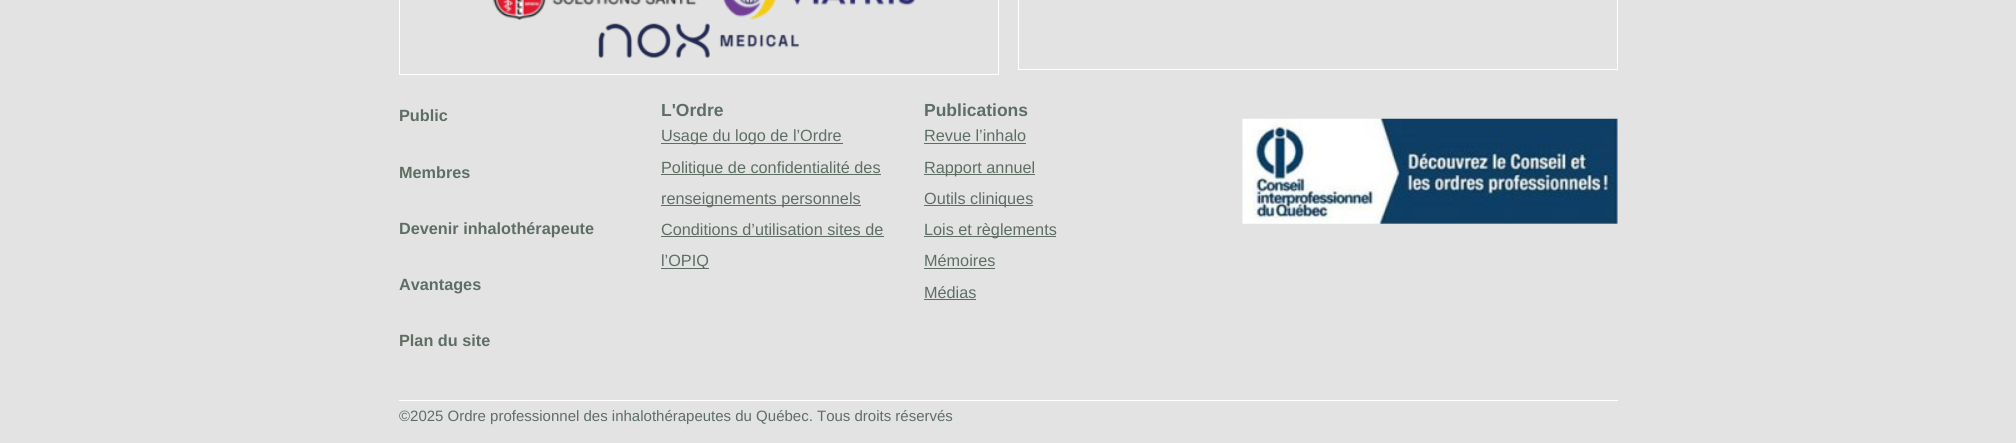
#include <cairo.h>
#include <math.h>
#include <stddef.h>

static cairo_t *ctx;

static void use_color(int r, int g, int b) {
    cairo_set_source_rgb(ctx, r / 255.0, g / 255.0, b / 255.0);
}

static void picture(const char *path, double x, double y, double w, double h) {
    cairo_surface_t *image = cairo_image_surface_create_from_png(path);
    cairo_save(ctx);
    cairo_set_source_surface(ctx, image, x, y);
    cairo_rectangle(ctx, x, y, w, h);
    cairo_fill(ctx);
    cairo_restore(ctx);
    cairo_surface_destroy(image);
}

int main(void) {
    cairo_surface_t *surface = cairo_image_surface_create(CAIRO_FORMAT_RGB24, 2016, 443);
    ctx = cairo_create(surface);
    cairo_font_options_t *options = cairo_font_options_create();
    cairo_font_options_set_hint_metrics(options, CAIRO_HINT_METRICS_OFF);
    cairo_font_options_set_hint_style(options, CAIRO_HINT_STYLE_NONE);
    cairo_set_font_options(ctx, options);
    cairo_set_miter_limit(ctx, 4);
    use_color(227, 227, 227);
    cairo_paint(ctx);
    cairo_rectangle(ctx, 399.5, -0.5, 599, 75);
    use_color(255, 255, 255);
    cairo_set_line_width(ctx, 1);
    cairo_stroke(ctx);
    picture("img1.png", 492, 0, 205, 20);
    picture("img2.png", 723, 0, 193, 20);
    picture("img3.png", 598, 23, 201, 35);
    cairo_rectangle(ctx, 1018.5, -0.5, 599, 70);
    cairo_stroke(ctx);
    cairo_select_font_face(ctx, "Liberation Sans", CAIRO_FONT_SLANT_NORMAL, CAIRO_FONT_WEIGHT_BOLD);
    cairo_set_font_size(ctx, 16.25);
    use_color(94, 110, 101);
    cairo_move_to(ctx, 399, 121);
    cairo_show_text(ctx, "Public");
    cairo_move_to(ctx, 399, 178);
    cairo_show_text(ctx, "Membres");
    cairo_move_to(ctx, 399, 234);
    cairo_show_text(ctx, "Devenir inhalothérapeute");
    cairo_move_to(ctx, 399, 290);
    cairo_show_text(ctx, "Avantages");
    cairo_move_to(ctx, 399, 346);
    cairo_show_text(ctx, "Plan du site");
    cairo_set_font_size(ctx, 17.5);
    cairo_move_to(ctx, 661, 116);
    cairo_show_text(ctx, "L'Ordre");
    cairo_rectangle(ctx, 661, 143, 182, 1);
    cairo_fill(ctx);
    cairo_select_font_face(ctx, "Liberation Sans", CAIRO_FONT_SLANT_NORMAL, CAIRO_FONT_WEIGHT_NORMAL);
    cairo_set_font_size(ctx, 16.25);
    cairo_move_to(ctx, 661, 141);
    cairo_show_text(ctx, "Usage du logo de l’Ordre");
    cairo_rectangle(ctx, 661, 174, 220, 1);
    cairo_fill(ctx);
    cairo_move_to(ctx, 661, 173);
    cairo_show_text(ctx, "Politique de confidentialité des");
    cairo_rectangle(ctx, 661, 205, 200, 1);
    cairo_fill(ctx);
    cairo_move_to(ctx, 661, 204);
    cairo_show_text(ctx, "renseignements personnels");
    cairo_move_to(ctx, 661, 235);
    cairo_show_text(ctx, "Conditions d’utilisation sites de");
    cairo_rectangle(ctx, 661, 236, 223, 1);
    cairo_fill(ctx);
    cairo_rectangle(ctx, 661, 268, 48, 1);
    cairo_fill(ctx);
    cairo_move_to(ctx, 661, 266);
    cairo_show_text(ctx, "l’OPIQ");
    cairo_select_font_face(ctx, "Liberation Sans", CAIRO_FONT_SLANT_NORMAL, CAIRO_FONT_WEIGHT_BOLD);
    cairo_set_font_size(ctx, 17.5);
    cairo_move_to(ctx, 924, 116);
    cairo_show_text(ctx, "Publications");
    cairo_select_font_face(ctx, "Liberation Sans", CAIRO_FONT_SLANT_NORMAL, CAIRO_FONT_WEIGHT_NORMAL);
    cairo_set_font_size(ctx, 16.25);
    cairo_move_to(ctx, 924, 141);
    cairo_show_text(ctx, "Revue l’inhalo");
    cairo_rectangle(ctx, 924, 143, 102, 1);
    cairo_fill(ctx);
    cairo_rectangle(ctx, 924, 174, 111, 1);
    cairo_fill(ctx);
    cairo_move_to(ctx, 924, 173);
    cairo_show_text(ctx, "Rapport annuel");
    cairo_rectangle(ctx, 924, 205, 109, 1);
    cairo_fill(ctx);
    cairo_move_to(ctx, 924, 204);
    cairo_show_text(ctx, "Outils cliniques");
    cairo_rectangle(ctx, 924, 236, 132, 1);
    cairo_fill(ctx);
    cairo_move_to(ctx, 924, 235);
    cairo_show_text(ctx, "Lois et règlements");
    cairo_move_to(ctx, 924, 266);
    cairo_show_text(ctx, "Mémoires");
    cairo_rectangle(ctx, 924, 268, 71, 1);
    cairo_fill(ctx);
    cairo_move_to(ctx, 924, 298);
    cairo_show_text(ctx, "Médias");
    cairo_rectangle(ctx, 924, 299, 52, 1);
    cairo_fill(ctx);
    picture("img4.png", 1242, 118, 376, 106);
    use_color(255, 255, 255);
    cairo_rectangle(ctx, 399, 400, 1219, 1);
    cairo_fill(ctx);
    cairo_set_font_size(ctx, 15);
    use_color(94, 110, 101);
    cairo_move_to(ctx, 399, 421);
    cairo_show_text(ctx, "©2025 Ordre professionnel des inhalothérapeutes du Québec. Tous droits réservés");
    cairo_surface_write_to_png(surface, "result.png");
    cairo_font_options_destroy(options);
    cairo_destroy(ctx);
    cairo_surface_destroy(surface);
    return 0;
}
